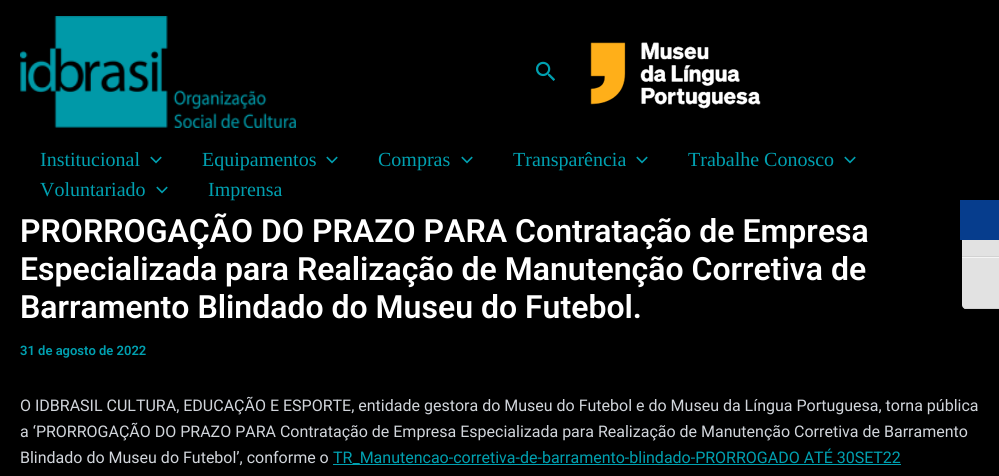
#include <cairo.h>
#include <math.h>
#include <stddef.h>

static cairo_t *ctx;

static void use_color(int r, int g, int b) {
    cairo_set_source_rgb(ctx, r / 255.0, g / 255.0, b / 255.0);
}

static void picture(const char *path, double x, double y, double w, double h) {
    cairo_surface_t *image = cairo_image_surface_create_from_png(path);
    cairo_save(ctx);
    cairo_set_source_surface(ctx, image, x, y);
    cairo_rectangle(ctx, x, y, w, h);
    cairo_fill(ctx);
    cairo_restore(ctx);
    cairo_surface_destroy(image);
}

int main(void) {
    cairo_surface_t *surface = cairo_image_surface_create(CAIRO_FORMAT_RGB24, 999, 476);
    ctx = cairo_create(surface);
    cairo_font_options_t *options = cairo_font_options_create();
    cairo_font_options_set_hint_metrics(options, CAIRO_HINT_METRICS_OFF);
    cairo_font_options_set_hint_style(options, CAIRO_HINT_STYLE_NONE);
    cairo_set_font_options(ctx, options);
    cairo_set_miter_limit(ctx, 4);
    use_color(0, 0, 0);
    cairo_paint(ctx);
    picture("img1.png", 20, 16, 276, 112);
    picture("img2.png", 536, 61, 19, 20);
    picture("img3.png", 590, 42, 171, 67);
    cairo_select_font_face(ctx, "Liberation Serif", CAIRO_FONT_SLANT_NORMAL, CAIRO_FONT_WEIGHT_NORMAL);
    cairo_set_font_size(ctx, 20);
    use_color(0, 160, 176);
    cairo_move_to(ctx, 40, 166);
    cairo_show_text(ctx, "Institucional");
    picture("img4.png", 150, 156, 12, 8);
    cairo_move_to(ctx, 202, 166);
    cairo_show_text(ctx, "Equipamentos");
    picture("img4.png", 326, 156, 12, 8);
    cairo_move_to(ctx, 378, 166);
    cairo_show_text(ctx, "Compras");
    picture("img4.png", 461, 156, 12, 8);
    cairo_move_to(ctx, 513, 166);
    cairo_show_text(ctx, "Transparência");
    picture("img4.png", 636, 156, 12, 8);
    cairo_move_to(ctx, 688, 166);
    cairo_show_text(ctx, "Trabalhe Conosco");
    picture("img4.png", 844, 156, 12, 8);
    cairo_move_to(ctx, 40, 196);
    cairo_show_text(ctx, "Voluntariado");
    picture("img4.png", 156, 186, 12, 8);
    cairo_move_to(ctx, 208, 196);
    cairo_show_text(ctx, "Imprensa");
    cairo_select_font_face(ctx, "Roboto SemiBold", CAIRO_FONT_SLANT_NORMAL, CAIRO_FONT_WEIGHT_NORMAL);
    cairo_set_font_size(ctx, 32);
    use_color(255, 255, 255);
    cairo_move_to(ctx, 20, 242);
    cairo_show_text(ctx, "PRORROGAÇÃO DO PRAZO PARA Contratação de Empresa");
    cairo_move_to(ctx, 20, 280);
    cairo_show_text(ctx, "Especializada para Realização de Manutenção Corretiva de");
    cairo_move_to(ctx, 20, 318);
    cairo_show_text(ctx, "Barramento Blindado do Museu do Futebol.");
    cairo_set_font_size(ctx, 13);
    use_color(0, 160, 176);
    cairo_move_to(ctx, 20, 355);
    cairo_show_text(ctx, "31 de agosto de 2022");
    cairo_select_font_face(ctx, "Roboto", CAIRO_FONT_SLANT_NORMAL, CAIRO_FONT_WEIGHT_NORMAL);
    cairo_set_font_size(ctx, 16);
    use_color(209, 213, 219);
    cairo_move_to(ctx, 20, 411);
    cairo_show_text(ctx, "O IDBRASIL CULTURA, EDUCAÇÃO E ESPORTE, entidade gestora do Museu do Futebol e do Museu da Língua Portuguesa, torna pública");
    cairo_move_to(ctx, 20, 437);
    cairo_show_text(ctx, "a ‘PRORROGAÇÃO DO PRAZO PARA Contratação de Empresa Especializada para Realização de Manutenção Corretiva de Barramento");
    cairo_move_to(ctx, 20, 463);
    cairo_show_text(ctx, "Blindado do Museu do Futebol’, conforme o");
    use_color(0, 160, 176);
    cairo_rectangle(ctx, 333, 464, 568, 1);
    cairo_fill(ctx);
    cairo_move_to(ctx, 333, 463);
    cairo_show_text(ctx, "TR_Manutencao-corretiva-de-barramento-blindado-PRORROGADO ATÉ 30SET22");
    use_color(6, 61, 141);
    cairo_rectangle(ctx, 960, 200, 39, 40);
    cairo_fill(ctx);
    use_color(226, 226, 226);
    cairo_rectangle(ctx, 962, 240, 37, 16);
    cairo_fill(ctx);
    use_color(210, 210, 210);
    cairo_rectangle(ctx, 962, 256, 37, 1);
    cairo_fill(ctx);
    use_color(226, 226, 226);
    cairo_new_path(ctx);
    cairo_move_to(ctx, 962, 257);
    cairo_line_to(ctx, 999, 257);
    cairo_line_to(ctx, 999, 309);
    cairo_line_to(ctx, 966, 309);
    cairo_curve_to(ctx, 964, 309, 962, 307, 962, 305);
    cairo_close_path(ctx);
    cairo_fill(ctx);
    use_color(245, 245, 245);
    cairo_rectangle(ctx, 962, 257, 37, 1);
    cairo_fill(ctx);
    use_color(210, 210, 210);
    cairo_new_path(ctx);
    cairo_move_to(ctx, 999, 309);
    cairo_line_to(ctx, 999, 308);
    cairo_line_to(ctx, 966, 308);
    cairo_curve_to(ctx, 964, 308, 962, 307, 962, 305);
    cairo_curve_to(ctx, 962, 307, 964, 309, 966, 309);
    cairo_close_path(ctx);
    cairo_fill(ctx);
    cairo_surface_write_to_png(surface, "result.png");
    cairo_font_options_destroy(options);
    cairo_destroy(ctx);
    cairo_surface_destroy(surface);
    return 0;
}
